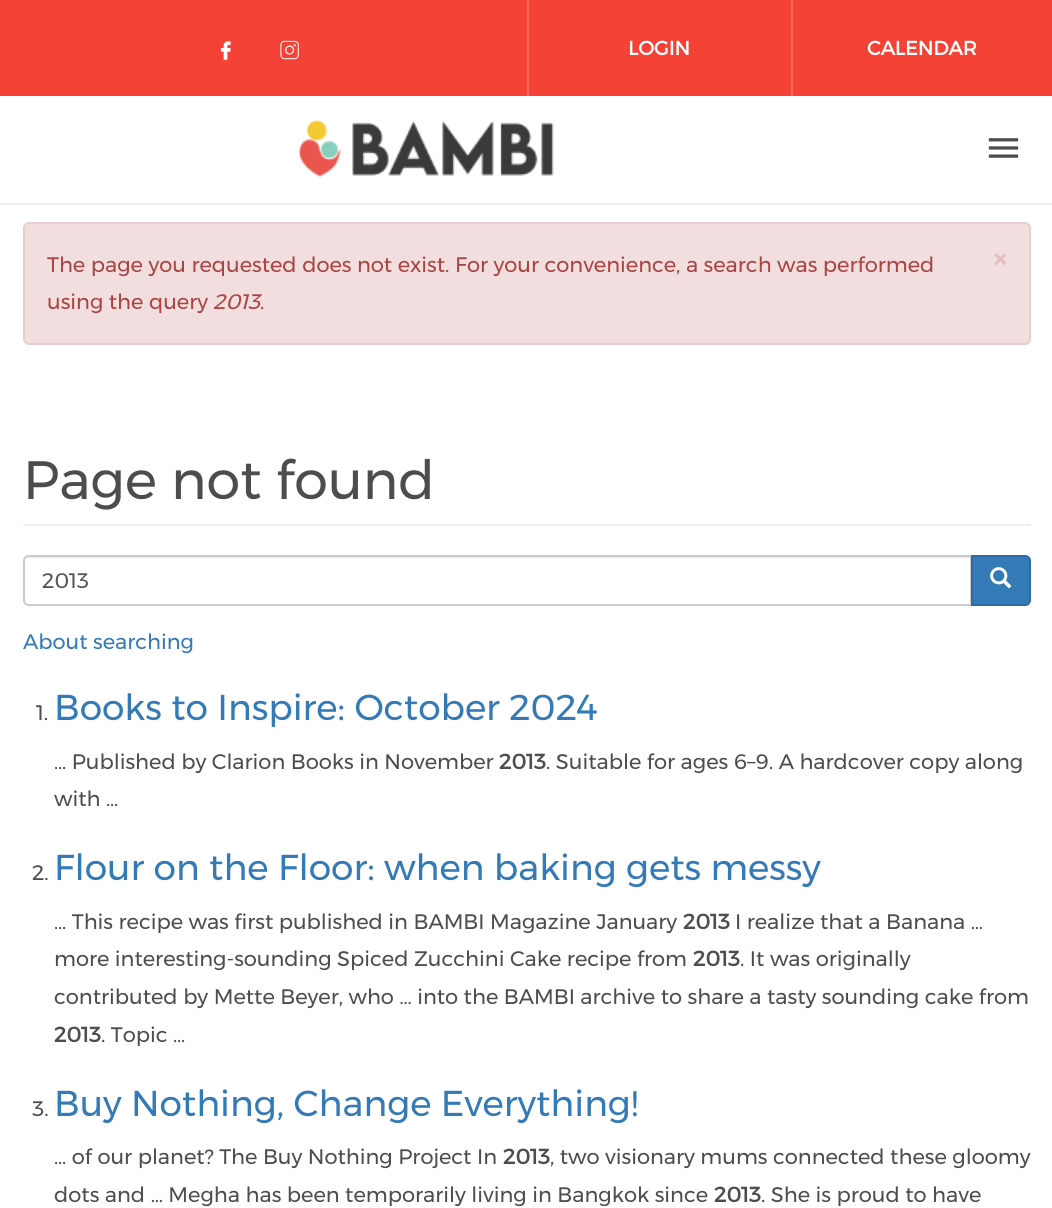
#include <cairo.h>
#include <math.h>
#include <stddef.h>

static cairo_t *ctx;

static void use_color(int r, int g, int b) {
    cairo_set_source_rgb(ctx, r / 255.0, g / 255.0, b / 255.0);
}

static void round_rect(double x, double y, double w, double h, double r) {
    cairo_new_sub_path(ctx);
    cairo_arc(ctx, x + w - r, y + h - r, r, 0, M_PI / 2);
    cairo_arc(ctx, x + r, y + h - r, r, M_PI / 2, M_PI);
    cairo_arc(ctx, x + r, y + r, r, M_PI, 1.5 * M_PI);
    cairo_arc(ctx, x + w - r, y + r, r, 1.5 * M_PI, 2 * M_PI);
    cairo_close_path(ctx);
}

static void picture(const char *path, double x, double y, double w, double h) {
    cairo_surface_t *image = cairo_image_surface_create_from_png(path);
    cairo_save(ctx);
    cairo_set_source_surface(ctx, image, x, y);
    cairo_rectangle(ctx, x, y, w, h);
    cairo_fill(ctx);
    cairo_restore(ctx);
    cairo_surface_destroy(image);
}

int main(void) {
    cairo_surface_t *surface = cairo_image_surface_create(CAIRO_FORMAT_RGB24, 1052, 1208);
    ctx = cairo_create(surface);
    cairo_font_options_t *options = cairo_font_options_create();
    cairo_font_options_set_hint_metrics(options, CAIRO_HINT_METRICS_OFF);
    cairo_font_options_set_hint_style(options, CAIRO_HINT_STYLE_NONE);
    cairo_set_font_options(ctx, options);
    cairo_set_miter_limit(ctx, 4);
    use_color(255, 255, 255);
    cairo_paint(ctx);
    use_color(239, 239, 239);
    cairo_rectangle(ctx, 0, 203, 1052, 2);
    cairo_fill(ctx);
    use_color(244, 66, 54);
    cairo_rectangle(ctx, 0, 0, 1052, 96);
    cairo_fill(ctx);
    cairo_select_font_face(ctx, "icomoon", CAIRO_FONT_SLANT_NORMAL, CAIRO_FONT_WEIGHT_NORMAL);
    cairo_set_font_size(ctx, 33);
    use_color(255, 255, 255);
    cairo_move_to(ctx, 209, 65);
    cairo_show_text(ctx, "3");
    picture("img1.png", 280, 40, 19, 20);
    use_color(246, 104, 94);
    cairo_rectangle(ctx, 527, 0, 2, 96);
    cairo_fill(ctx);
    cairo_select_font_face(ctx, "Montserrat", CAIRO_FONT_SLANT_NORMAL, CAIRO_FONT_WEIGHT_BOLD);
    cairo_set_font_size(ctx, 19.5);
    use_color(255, 255, 255);
    cairo_move_to(ctx, 628, 55);
    cairo_show_text(ctx, "LOGIN");
    use_color(246, 104, 94);
    cairo_rectangle(ctx, 791, 0, 2, 96);
    cairo_fill(ctx);
    use_color(255, 255, 255);
    cairo_move_to(ctx, 867, 55);
    cairo_show_text(ctx, "CALENDAR");
    picture("img2.png", 298, 119, 256, 59);
    picture("img3.png", 988, 138, 31, 20);
    use_color(242, 222, 222);
    round_rect(24, 223, 1006, 121, 5);
    cairo_fill_preserve(ctx);
    use_color(235, 204, 209);
    cairo_stroke(ctx);
    cairo_select_font_face(ctx, "Montserrat", CAIRO_FONT_SLANT_NORMAL, CAIRO_FONT_WEIGHT_NORMAL);
    cairo_set_font_size(ctx, 21);
    use_color(169, 68, 66);
    cairo_move_to(ctx, 47, 272);
    cairo_show_text(ctx, "The page you requested does not exist. For your convenience, a search was performed");
    cairo_move_to(ctx, 47, 309);
    cairo_show_text(ctx, "using the query");
    cairo_select_font_face(ctx, "Montserrat", CAIRO_FONT_SLANT_ITALIC, CAIRO_FONT_WEIGHT_NORMAL);
    cairo_move_to(ctx, 213, 309);
    cairo_show_text(ctx, "2013");
    cairo_select_font_face(ctx, "Montserrat", CAIRO_FONT_SLANT_NORMAL, CAIRO_FONT_WEIGHT_NORMAL);
    cairo_move_to(ctx, 260, 309);
    cairo_show_text(ctx, ".");
    cairo_select_font_face(ctx, "Montserrat", CAIRO_FONT_SLANT_NORMAL, CAIRO_FONT_WEIGHT_BOLD);
    cairo_set_font_size(ctx, 32);
    use_color(227, 191, 191);
    cairo_move_to(ctx, 992, 270);
    cairo_show_text(ctx, "×");
    use_color(238, 238, 238);
    cairo_rectangle(ctx, 23, 524, 1008, 2);
    cairo_fill(ctx);
    cairo_select_font_face(ctx, "Montserrat", CAIRO_FONT_SLANT_NORMAL, CAIRO_FONT_WEIGHT_NORMAL);
    cairo_set_font_size(ctx, 54);
    use_color(77, 77, 77);
    cairo_move_to(ctx, 23, 499);
    cairo_show_text(ctx, "Page not found");
    use_color(236, 236, 236);
    cairo_new_path(ctx);
    cairo_move_to(ctx, 28, 558);
    cairo_line_to(ctx, 970, 558);
    cairo_line_to(ctx, 970, 605);
    cairo_line_to(ctx, 971, 605);
    cairo_line_to(ctx, 971, 557);
    cairo_line_to(ctx, 29, 557);
    cairo_curve_to(ctx, 26, 557, 24, 559, 24, 562);
    cairo_curve_to(ctx, 24, 560, 26, 558, 28, 558);
    cairo_close_path(ctx);
    cairo_fill(ctx);
    cairo_new_path(ctx);
    cairo_move_to(ctx, 29, 556);
    cairo_line_to(ctx, 971, 556);
    cairo_line_to(ctx, 971, 605);
    cairo_line_to(ctx, 29, 605);
    cairo_curve_to(ctx, 26, 605, 24, 603, 24, 600);
    cairo_line_to(ctx, 24, 561);
    cairo_curve_to(ctx, 24, 558, 26, 556, 29, 556);
    cairo_close_path(ctx);
    use_color(204, 204, 204);
    cairo_stroke(ctx);
    cairo_set_font_size(ctx, 21);
    use_color(85, 85, 85);
    cairo_move_to(ctx, 42, 588);
    cairo_show_text(ctx, "2013");
    use_color(51, 122, 183);
    cairo_new_path(ctx);
    cairo_move_to(ctx, 972, 556);
    cairo_line_to(ctx, 1025, 556);
    cairo_curve_to(ctx, 1028, 556, 1030, 558, 1030, 561);
    cairo_line_to(ctx, 1030, 600);
    cairo_curve_to(ctx, 1030, 603, 1028, 605, 1025, 605);
    cairo_line_to(ctx, 972, 605);
    cairo_close_path(ctx);
    cairo_fill_preserve(ctx);
    use_color(46, 109, 164);
    cairo_stroke(ctx);
    picture("img4.png", 990, 567, 22, 22);
    use_color(51, 122, 183);
    cairo_move_to(ctx, 23, 649);
    cairo_show_text(ctx, "About searching");
    use_color(77, 77, 77);
    cairo_move_to(ctx, 36, 720);
    cairo_show_text(ctx, "1.");
    cairo_set_font_size(ctx, 36);
    use_color(51, 122, 183);
    cairo_move_to(ctx, 54, 720);
    cairo_show_text(ctx, "Books to Inspire: October 2024");
    cairo_set_font_size(ctx, 21);
    use_color(77, 77, 77);
    cairo_move_to(ctx, 54, 769);
    cairo_show_text(ctx, "… Published by Clarion Books in November");
    cairo_select_font_face(ctx, "Montserrat", CAIRO_FONT_SLANT_NORMAL, CAIRO_FONT_WEIGHT_BOLD);
    cairo_move_to(ctx, 499, 769);
    cairo_show_text(ctx, "2013");
    cairo_select_font_face(ctx, "Montserrat", CAIRO_FONT_SLANT_NORMAL, CAIRO_FONT_WEIGHT_NORMAL);
    cairo_move_to(ctx, 546, 769);
    cairo_show_text(ctx, ". Suitable for ages 6–9. A hardcover copy along");
    cairo_move_to(ctx, 54, 806);
    cairo_show_text(ctx, "with …");
    cairo_move_to(ctx, 32, 880);
    cairo_show_text(ctx, "2.");
    cairo_set_font_size(ctx, 36);
    use_color(51, 122, 183);
    cairo_move_to(ctx, 54, 880);
    cairo_show_text(ctx, "Flour on the Floor: when baking gets messy");
    cairo_set_font_size(ctx, 21);
    use_color(77, 77, 77);
    cairo_move_to(ctx, 54, 929);
    cairo_show_text(ctx, "… This recipe was first published in BAMBI Magazine January");
    cairo_select_font_face(ctx, "Montserrat", CAIRO_FONT_SLANT_NORMAL, CAIRO_FONT_WEIGHT_BOLD);
    cairo_move_to(ctx, 683, 929);
    cairo_show_text(ctx, "2013");
    cairo_select_font_face(ctx, "Montserrat", CAIRO_FONT_SLANT_NORMAL, CAIRO_FONT_WEIGHT_NORMAL);
    cairo_move_to(ctx, 735, 929);
    cairo_show_text(ctx, "I realize that a Banana …");
    cairo_move_to(ctx, 54, 966);
    cairo_show_text(ctx, "more interesting-sounding Spiced Zucchini Cake recipe from");
    cairo_select_font_face(ctx, "Montserrat", CAIRO_FONT_SLANT_NORMAL, CAIRO_FONT_WEIGHT_BOLD);
    cairo_move_to(ctx, 693, 966);
    cairo_show_text(ctx, "2013");
    cairo_select_font_face(ctx, "Montserrat", CAIRO_FONT_SLANT_NORMAL, CAIRO_FONT_WEIGHT_NORMAL);
    cairo_move_to(ctx, 740, 966);
    cairo_show_text(ctx, ". It was originally");
    cairo_move_to(ctx, 54, 1004);
    cairo_show_text(ctx, "contributed by Mette Beyer, who … into the BAMBI archive to share a tasty sounding cake from");
    cairo_select_font_face(ctx, "Montserrat", CAIRO_FONT_SLANT_NORMAL, CAIRO_FONT_WEIGHT_BOLD);
    cairo_move_to(ctx, 54, 1042);
    cairo_show_text(ctx, "2013");
    cairo_select_font_face(ctx, "Montserrat", CAIRO_FONT_SLANT_NORMAL, CAIRO_FONT_WEIGHT_NORMAL);
    cairo_move_to(ctx, 101, 1042);
    cairo_show_text(ctx, ". Topic …");
    cairo_move_to(ctx, 32, 1116);
    cairo_show_text(ctx, "3.");
    cairo_set_font_size(ctx, 36);
    use_color(51, 122, 183);
    cairo_move_to(ctx, 54, 1116);
    cairo_show_text(ctx, "Buy Nothing, Change Everything!");
    cairo_set_font_size(ctx, 21);
    use_color(77, 77, 77);
    cairo_move_to(ctx, 54, 1164);
    cairo_show_text(ctx, "… of our planet? The Buy Nothing Project In");
    cairo_select_font_face(ctx, "Montserrat", CAIRO_FONT_SLANT_NORMAL, CAIRO_FONT_WEIGHT_BOLD);
    cairo_move_to(ctx, 503, 1164);
    cairo_show_text(ctx, "2013");
    cairo_select_font_face(ctx, "Montserrat", CAIRO_FONT_SLANT_NORMAL, CAIRO_FONT_WEIGHT_NORMAL);
    cairo_move_to(ctx, 550, 1164);
    cairo_show_text(ctx, ", two visionary mums connected these gloomy");
    cairo_move_to(ctx, 54, 1202);
    cairo_show_text(ctx, "dots and … Megha has been temporarily living in Bangkok since");
    cairo_select_font_face(ctx, "Montserrat", CAIRO_FONT_SLANT_NORMAL, CAIRO_FONT_WEIGHT_BOLD);
    cairo_move_to(ctx, 714, 1202);
    cairo_show_text(ctx, "2013");
    cairo_select_font_face(ctx, "Montserrat", CAIRO_FONT_SLANT_NORMAL, CAIRO_FONT_WEIGHT_NORMAL);
    cairo_move_to(ctx, 761, 1202);
    cairo_show_text(ctx, ". She is proud to have");
    cairo_surface_write_to_png(surface, "result.png");
    cairo_font_options_destroy(options);
    cairo_destroy(ctx);
    cairo_surface_destroy(surface);
    return 0;
}
